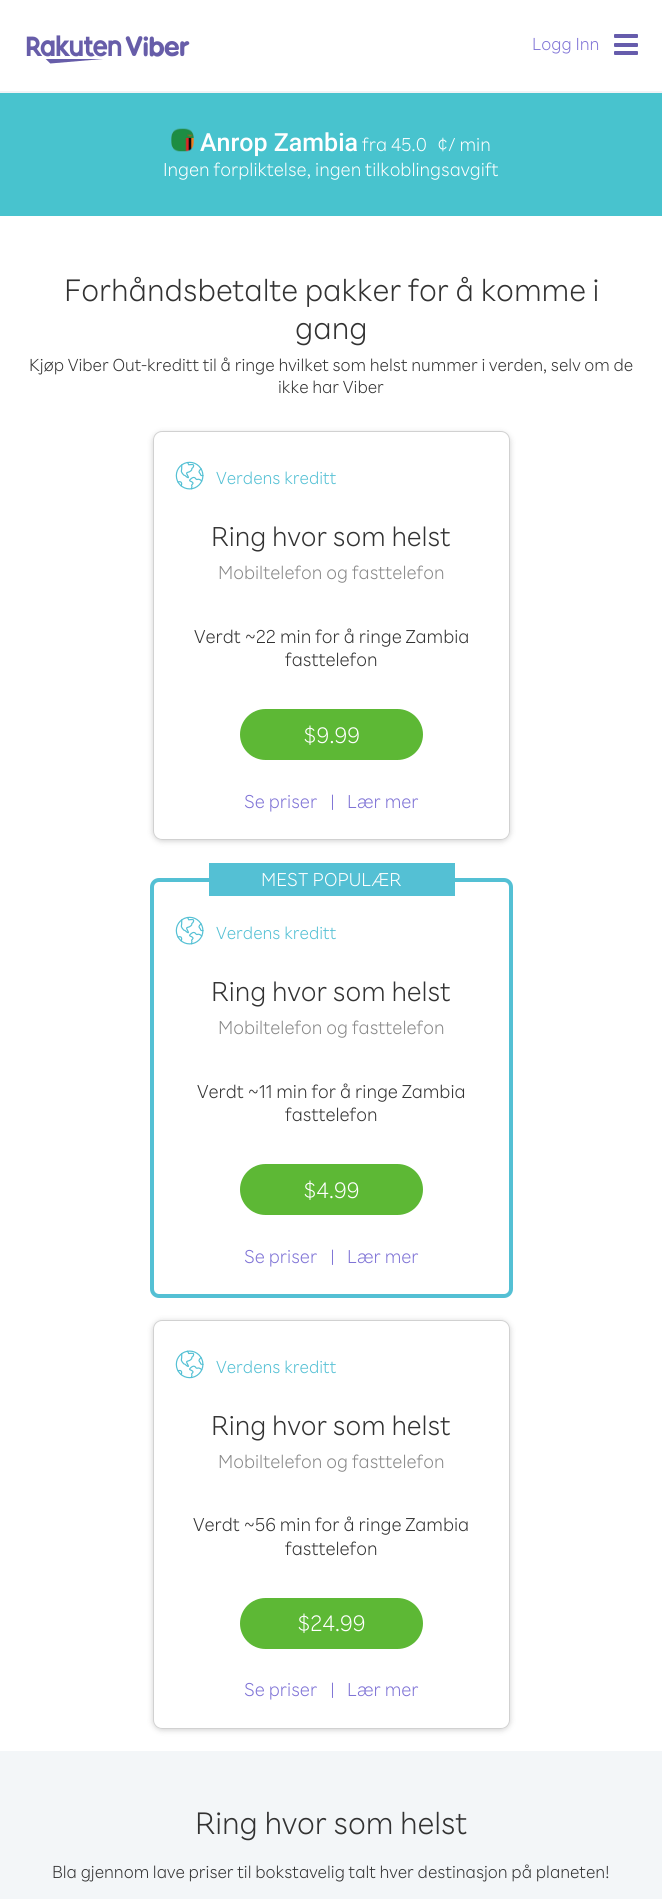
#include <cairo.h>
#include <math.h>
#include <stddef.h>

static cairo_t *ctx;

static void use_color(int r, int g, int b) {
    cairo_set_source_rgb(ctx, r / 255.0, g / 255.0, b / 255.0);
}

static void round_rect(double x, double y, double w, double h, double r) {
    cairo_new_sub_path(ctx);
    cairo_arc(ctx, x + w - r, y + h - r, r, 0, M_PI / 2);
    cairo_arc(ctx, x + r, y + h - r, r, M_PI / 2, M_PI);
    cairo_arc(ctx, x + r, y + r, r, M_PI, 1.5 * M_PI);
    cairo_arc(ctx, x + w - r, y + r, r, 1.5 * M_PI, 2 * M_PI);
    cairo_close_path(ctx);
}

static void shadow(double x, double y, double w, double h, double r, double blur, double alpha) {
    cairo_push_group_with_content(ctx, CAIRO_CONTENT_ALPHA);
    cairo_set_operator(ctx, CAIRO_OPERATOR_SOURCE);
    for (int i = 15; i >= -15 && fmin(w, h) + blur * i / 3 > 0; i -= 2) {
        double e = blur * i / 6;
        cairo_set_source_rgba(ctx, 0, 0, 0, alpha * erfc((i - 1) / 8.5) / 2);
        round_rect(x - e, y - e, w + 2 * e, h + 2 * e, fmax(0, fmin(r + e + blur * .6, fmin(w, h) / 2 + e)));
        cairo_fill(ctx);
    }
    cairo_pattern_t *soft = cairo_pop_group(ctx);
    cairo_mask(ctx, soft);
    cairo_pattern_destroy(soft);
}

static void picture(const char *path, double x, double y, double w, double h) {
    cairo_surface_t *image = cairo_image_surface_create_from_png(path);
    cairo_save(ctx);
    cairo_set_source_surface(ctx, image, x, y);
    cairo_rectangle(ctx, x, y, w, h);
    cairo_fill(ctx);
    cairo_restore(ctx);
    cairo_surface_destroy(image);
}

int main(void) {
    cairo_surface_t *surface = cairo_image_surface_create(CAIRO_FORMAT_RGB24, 662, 1899);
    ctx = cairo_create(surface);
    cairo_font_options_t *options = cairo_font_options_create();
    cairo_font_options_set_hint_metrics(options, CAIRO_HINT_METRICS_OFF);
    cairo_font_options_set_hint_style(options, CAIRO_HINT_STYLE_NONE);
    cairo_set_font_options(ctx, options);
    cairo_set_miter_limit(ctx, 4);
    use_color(241, 243, 246);
    cairo_paint(ctx);
    use_color(255, 255, 255);
    cairo_rectangle(ctx, 0, 0, 662, 91);
    cairo_fill(ctx);
    picture("img1.png", 26, 35, 164, 29);
    cairo_select_font_face(ctx, "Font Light", CAIRO_FONT_SLANT_NORMAL, CAIRO_FONT_WEIGHT_NORMAL);
    cairo_set_font_size(ctx, 17.5);
    use_color(128, 116, 214);
    cairo_move_to(ctx, 532, 50);
    cairo_show_text(ctx, "Logg Inn");
    use_color(102, 92, 172);
    round_rect(614, 34, 24, 4, 1);
    cairo_fill(ctx);
    round_rect(614, 43, 24, 4, 1);
    cairo_fill(ctx);
    round_rect(614, 51, 24, 4, 1);
    cairo_fill(ctx);
    use_color(255, 255, 255);
    cairo_rectangle(ctx, 0, 216, 662, 1535);
    cairo_fill(ctx);
    use_color(72, 195, 206);
    cairo_rectangle(ctx, 0, 93, 662, 123);
    cairo_fill(ctx);
    picture("img2.png", 171, 128, 23, 24);
    cairo_select_font_face(ctx, "Roboto Medium", CAIRO_FONT_SLANT_NORMAL, CAIRO_FONT_WEIGHT_NORMAL);
    cairo_set_font_size(ctx, 25);
    use_color(255, 255, 255);
    cairo_move_to(ctx, 200, 151);
    cairo_show_text(ctx, "Anrop Zambia");
    cairo_select_font_face(ctx, "Font Light", CAIRO_FONT_SLANT_NORMAL, CAIRO_FONT_WEIGHT_NORMAL);
    cairo_set_font_size(ctx, 18.75);
    cairo_move_to(ctx, 362, 151);
    cairo_show_text(ctx, "fra 45.0");
    cairo_move_to(ctx, 437, 151);
    cairo_show_text(ctx, "¢/ min");
    cairo_move_to(ctx, 163, 176);
    cairo_show_text(ctx, "Ingen forpliktelse, ingen tilkoblingsavgift");
    cairo_set_font_size(ctx, 31.25);
    use_color(50, 50, 50);
    cairo_move_to(ctx, 64, 301);
    cairo_show_text(ctx, "Forhåndsbetalte pakker for å komme i");
    cairo_move_to(ctx, 295, 339);
    cairo_show_text(ctx, "gang");
    cairo_set_font_size(ctx, 17.5);
    cairo_move_to(ctx, 29, 371);
    cairo_show_text(ctx, "Kjøp Viber Out-kreditt til å ringe hvilket som helst nummer i verden, selv om de");
    cairo_move_to(ctx, 278, 393);
    cairo_show_text(ctx, "ikke har Viber");
    cairo_save(ctx);
    cairo_set_fill_rule(ctx, CAIRO_FILL_RULE_EVEN_ODD);
    cairo_new_path(ctx);
    cairo_move_to(ctx, 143, 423);
    cairo_line_to(ctx, 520, 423);
    cairo_line_to(ctx, 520, 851);
    cairo_line_to(ctx, 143, 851);
    cairo_close_path(ctx);
    cairo_move_to(ctx, 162, 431);
    cairo_line_to(ctx, 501, 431);
    cairo_curve_to(ctx, 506, 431, 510, 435, 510, 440);
    cairo_line_to(ctx, 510, 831);
    cairo_curve_to(ctx, 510, 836, 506, 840, 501, 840);
    cairo_line_to(ctx, 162, 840);
    cairo_curve_to(ctx, 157, 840, 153, 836, 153, 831);
    cairo_line_to(ctx, 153, 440);
    cairo_curve_to(ctx, 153, 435, 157, 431, 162, 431);
    cairo_close_path(ctx);
    cairo_clip(ctx);
    use_color(0, 0, 0);
    shadow(153, 433, 357, 408, 9, 3, 0.19);
    cairo_restore(ctx);
    round_rect(153.5, 431.5, 356, 408, 8.5);
    cairo_set_source_rgba(ctx, 0.533, 0.533, 0.533, 0.38);
    cairo_set_line_width(ctx, 1);
    cairo_stroke(ctx);
    picture("img3.png", 175, 461, 29, 29);
    use_color(84, 192, 212);
    cairo_move_to(ctx, 216, 484);
    cairo_show_text(ctx, "Verdens kreditt");
    cairo_set_font_size(ctx, 27.5);
    use_color(50, 50, 50);
    cairo_move_to(ctx, 211, 546);
    cairo_show_text(ctx, "Ring hvor som helst");
    cairo_set_font_size(ctx, 18.75);
    use_color(136, 136, 136);
    cairo_move_to(ctx, 218, 579);
    cairo_show_text(ctx, "Mobiltelefon og fasttelefon");
    use_color(50, 50, 50);
    cairo_move_to(ctx, 194, 643);
    cairo_show_text(ctx, "Verdt ~22 min for å ringe Zambia");
    cairo_move_to(ctx, 285, 666);
    cairo_show_text(ctx, "fasttelefon");
    use_color(93, 184, 53);
    round_rect(240, 709, 183, 51, 25.5);
    cairo_fill(ctx);
    cairo_set_font_size(ctx, 22.5);
    use_color(255, 255, 255);
    cairo_move_to(ctx, 303, 743);
    cairo_show_text(ctx, "$9.99");
    cairo_set_font_size(ctx, 18.75);
    use_color(128, 116, 214);
    cairo_move_to(ctx, 244, 808);
    cairo_show_text(ctx, "Se priser");
    cairo_move_to(ctx, 330, 808);
    cairo_show_text(ctx, "|");
    cairo_move_to(ctx, 347, 808);
    cairo_show_text(ctx, "Lær mer");
    round_rect(152, 880, 359, 416, 7);
    use_color(84, 192, 212);
    cairo_set_line_width(ctx, 4);
    cairo_stroke(ctx);
    cairo_rectangle(ctx, 209, 863, 246, 33);
    cairo_fill(ctx);
    use_color(255, 255, 255);
    cairo_move_to(ctx, 261, 886);
    cairo_show_text(ctx, "MEST POPULÆR");
    picture("img3.png", 175, 916, 29, 29);
    cairo_set_font_size(ctx, 17.5);
    use_color(84, 192, 212);
    cairo_move_to(ctx, 216, 939);
    cairo_show_text(ctx, "Verdens kreditt");
    cairo_set_font_size(ctx, 27.5);
    use_color(50, 50, 50);
    cairo_move_to(ctx, 211, 1001);
    cairo_show_text(ctx, "Ring hvor som helst");
    cairo_set_font_size(ctx, 18.75);
    use_color(136, 136, 136);
    cairo_move_to(ctx, 218, 1034);
    cairo_show_text(ctx, "Mobiltelefon og fasttelefon");
    use_color(50, 50, 50);
    cairo_move_to(ctx, 197, 1098);
    cairo_show_text(ctx, "Verdt ~11 min for å ringe Zambia");
    cairo_move_to(ctx, 285, 1121);
    cairo_show_text(ctx, "fasttelefon");
    use_color(93, 184, 53);
    round_rect(240, 1164, 183, 51, 25.5);
    cairo_fill(ctx);
    cairo_set_font_size(ctx, 22.5);
    use_color(255, 255, 255);
    cairo_move_to(ctx, 303, 1198);
    cairo_show_text(ctx, "$4.99");
    cairo_set_font_size(ctx, 18.75);
    use_color(128, 116, 214);
    cairo_move_to(ctx, 244, 1263);
    cairo_show_text(ctx, "Se priser");
    cairo_move_to(ctx, 330, 1263);
    cairo_show_text(ctx, "|");
    cairo_move_to(ctx, 347, 1263);
    cairo_show_text(ctx, "Lær mer");
    cairo_save(ctx);
    cairo_set_fill_rule(ctx, CAIRO_FILL_RULE_EVEN_ODD);
    cairo_new_path(ctx);
    cairo_move_to(ctx, 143, 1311);
    cairo_line_to(ctx, 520, 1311);
    cairo_line_to(ctx, 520, 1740);
    cairo_line_to(ctx, 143, 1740);
    cairo_close_path(ctx);
    cairo_move_to(ctx, 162, 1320);
    cairo_line_to(ctx, 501, 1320);
    cairo_curve_to(ctx, 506, 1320, 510, 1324, 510, 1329);
    cairo_line_to(ctx, 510, 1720);
    cairo_curve_to(ctx, 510, 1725, 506, 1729, 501, 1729);
    cairo_line_to(ctx, 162, 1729);
    cairo_curve_to(ctx, 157, 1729, 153, 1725, 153, 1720);
    cairo_line_to(ctx, 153, 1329);
    cairo_curve_to(ctx, 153, 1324, 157, 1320, 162, 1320);
    cairo_close_path(ctx);
    cairo_clip(ctx);
    use_color(0, 0, 0);
    shadow(153, 1321, 357, 409, 9, 3, 0.19);
    cairo_restore(ctx);
    round_rect(153.5, 1320.5, 356, 408, 8.5);
    cairo_set_source_rgba(ctx, 0.533, 0.533, 0.533, 0.38);
    cairo_set_line_width(ctx, 1);
    cairo_stroke(ctx);
    picture("img4.png", 175, 1350, 29, 29);
    cairo_set_font_size(ctx, 17.5);
    use_color(84, 192, 212);
    cairo_move_to(ctx, 216, 1373);
    cairo_show_text(ctx, "Verdens kreditt");
    cairo_set_font_size(ctx, 27.5);
    use_color(50, 50, 50);
    cairo_move_to(ctx, 211, 1435);
    cairo_show_text(ctx, "Ring hvor som helst");
    cairo_set_font_size(ctx, 18.75);
    use_color(136, 136, 136);
    cairo_move_to(ctx, 218, 1468);
    cairo_show_text(ctx, "Mobiltelefon og fasttelefon");
    use_color(50, 50, 50);
    cairo_move_to(ctx, 193, 1531);
    cairo_show_text(ctx, "Verdt ~56 min for å ringe Zambia");
    cairo_move_to(ctx, 285, 1555);
    cairo_show_text(ctx, "fasttelefon");
    use_color(93, 184, 53);
    round_rect(240, 1598, 183, 51, 25.5);
    cairo_fill(ctx);
    cairo_set_font_size(ctx, 22.5);
    use_color(255, 255, 255);
    cairo_move_to(ctx, 297, 1631);
    cairo_show_text(ctx, "$24.99");
    cairo_set_font_size(ctx, 18.75);
    use_color(128, 116, 214);
    cairo_move_to(ctx, 244, 1696);
    cairo_show_text(ctx, "Se priser");
    cairo_move_to(ctx, 330, 1696);
    cairo_show_text(ctx, "|");
    cairo_move_to(ctx, 347, 1696);
    cairo_show_text(ctx, "Lær mer");
    use_color(243, 246, 248);
    cairo_rectangle(ctx, 0, 1751, 662, 148);
    cairo_fill(ctx);
    cairo_set_font_size(ctx, 31.25);
    use_color(50, 50, 50);
    cairo_move_to(ctx, 195, 1834);
    cairo_show_text(ctx, "Ring hvor som helst");
    cairo_set_font_size(ctx, 17.5);
    cairo_move_to(ctx, 52, 1878);
    cairo_show_text(ctx, "Bla gjennom lave priser til bokstavelig talt hver destinasjon på planeten!");
    cairo_surface_write_to_png(surface, "result.png");
    cairo_font_options_destroy(options);
    cairo_destroy(ctx);
    cairo_surface_destroy(surface);
    return 0;
}
